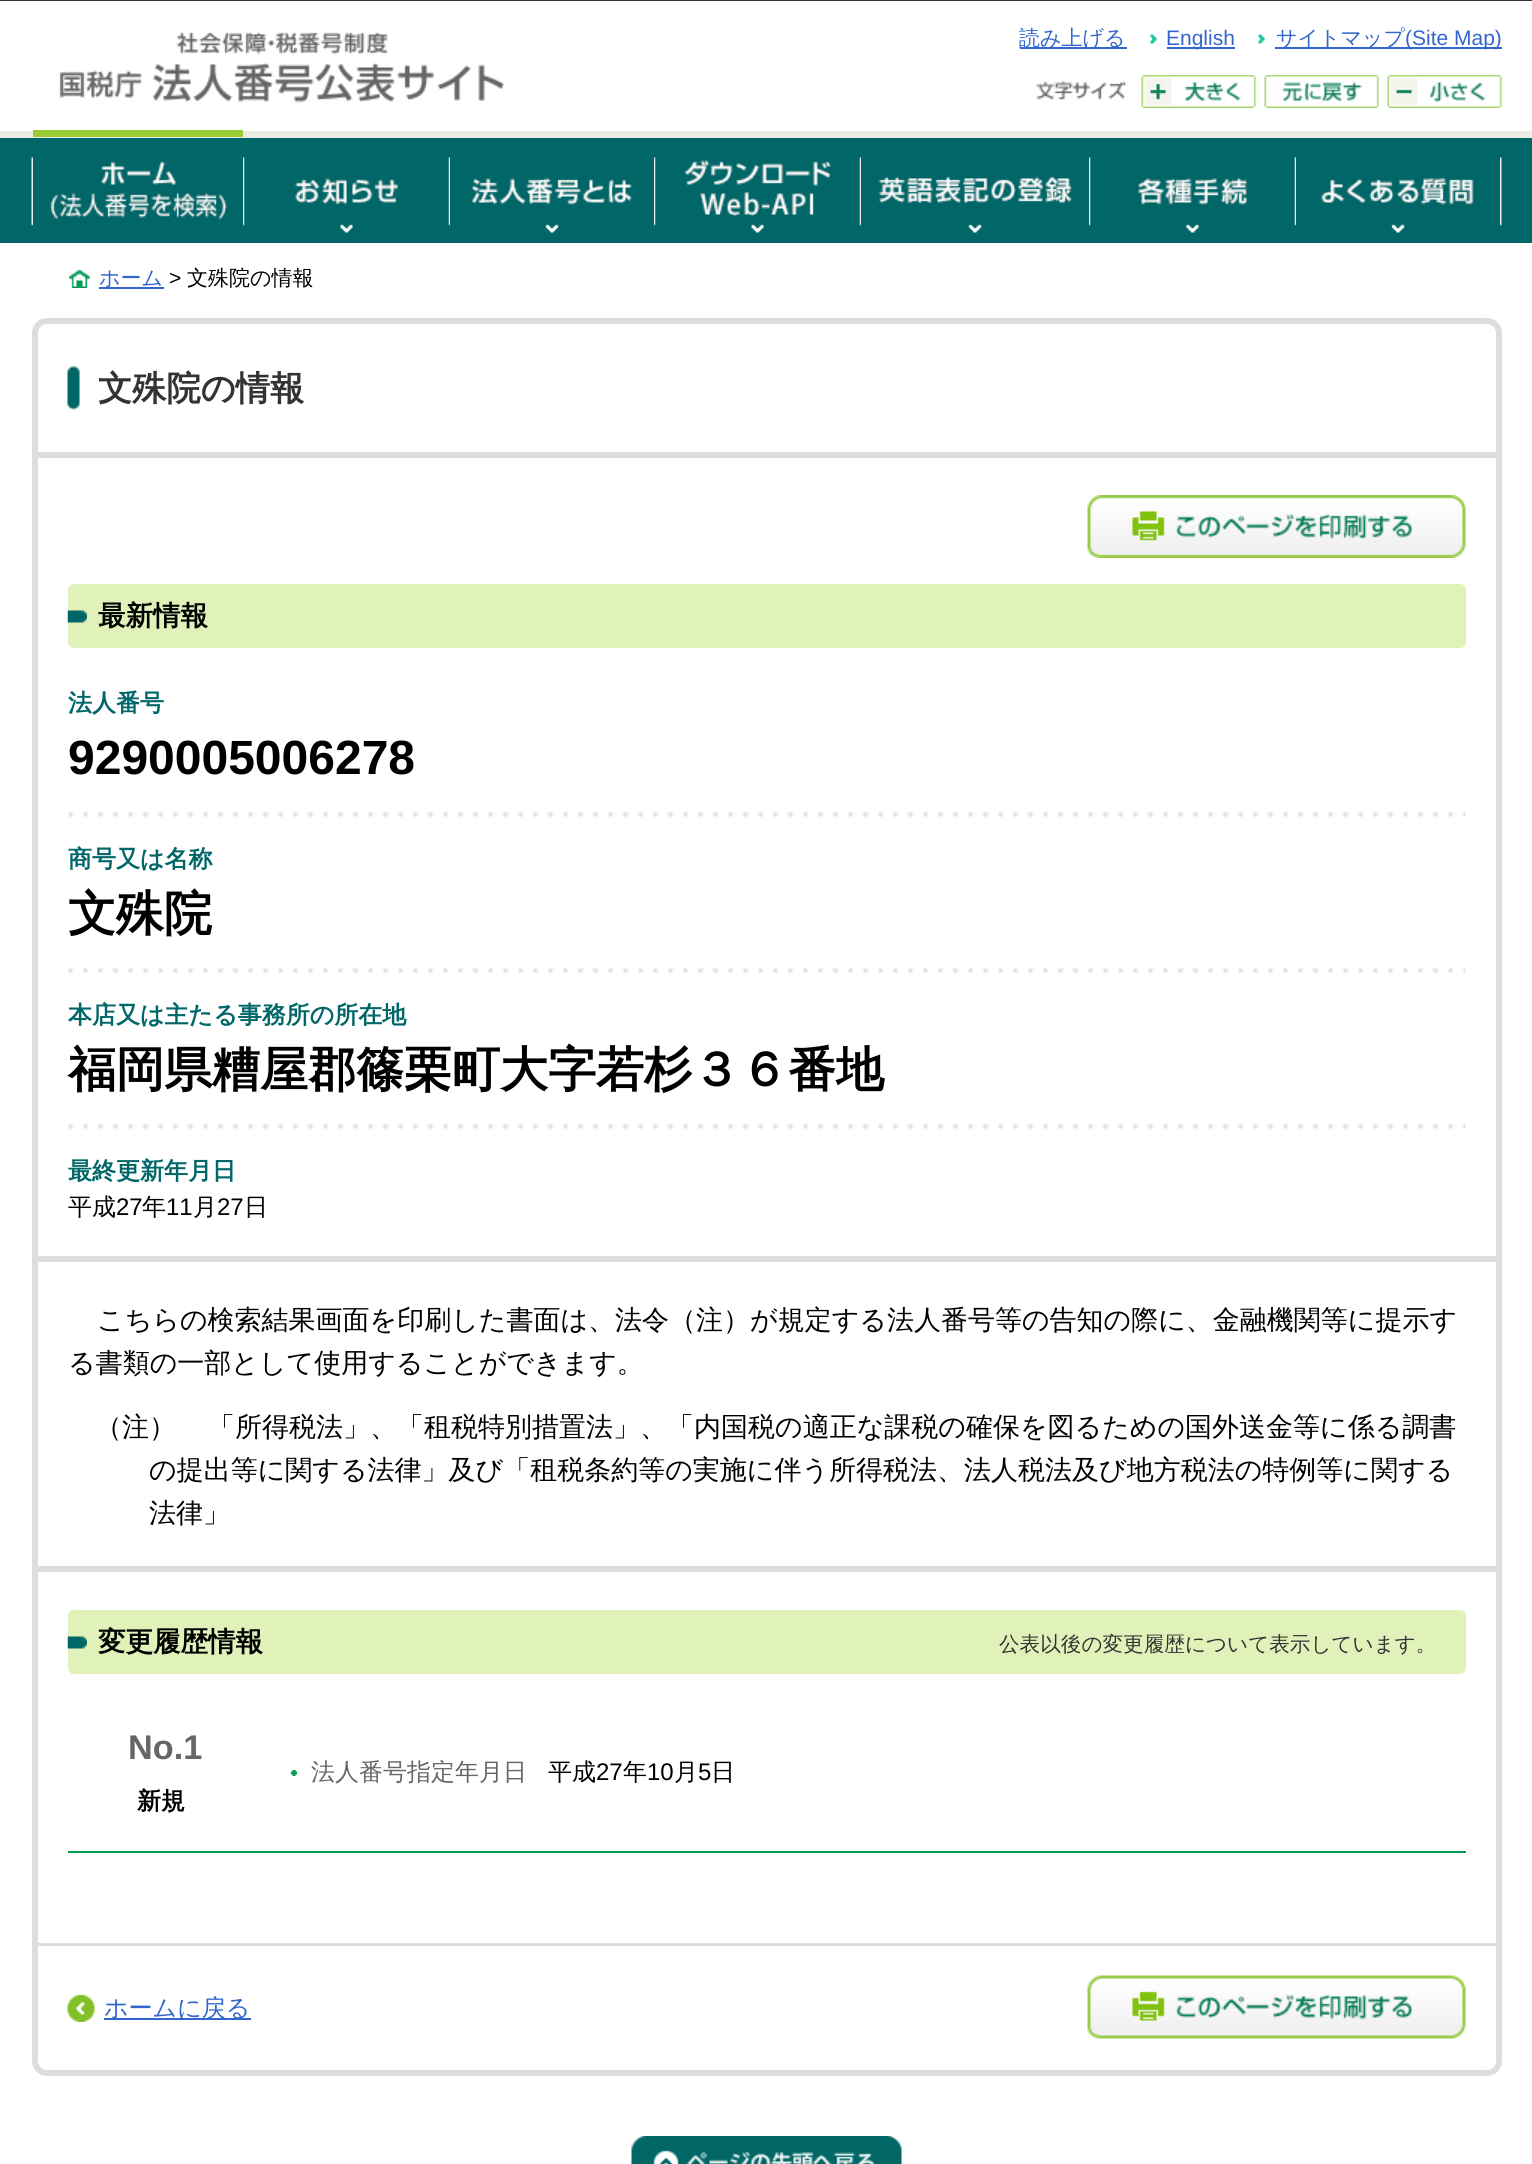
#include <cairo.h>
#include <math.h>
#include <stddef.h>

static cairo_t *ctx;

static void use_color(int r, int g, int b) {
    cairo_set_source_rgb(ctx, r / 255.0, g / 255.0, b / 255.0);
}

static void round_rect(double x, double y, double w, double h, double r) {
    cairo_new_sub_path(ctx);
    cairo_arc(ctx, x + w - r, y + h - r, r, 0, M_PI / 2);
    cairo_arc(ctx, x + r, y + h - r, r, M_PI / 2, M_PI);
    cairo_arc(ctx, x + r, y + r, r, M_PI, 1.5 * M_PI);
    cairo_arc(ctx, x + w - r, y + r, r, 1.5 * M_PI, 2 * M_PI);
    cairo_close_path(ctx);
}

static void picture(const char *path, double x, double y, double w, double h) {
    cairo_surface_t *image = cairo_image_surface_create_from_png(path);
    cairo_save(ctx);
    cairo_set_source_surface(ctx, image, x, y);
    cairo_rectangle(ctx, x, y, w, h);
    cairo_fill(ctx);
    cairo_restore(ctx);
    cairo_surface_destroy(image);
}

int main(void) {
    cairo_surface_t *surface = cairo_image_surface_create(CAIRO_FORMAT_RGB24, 1532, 2164);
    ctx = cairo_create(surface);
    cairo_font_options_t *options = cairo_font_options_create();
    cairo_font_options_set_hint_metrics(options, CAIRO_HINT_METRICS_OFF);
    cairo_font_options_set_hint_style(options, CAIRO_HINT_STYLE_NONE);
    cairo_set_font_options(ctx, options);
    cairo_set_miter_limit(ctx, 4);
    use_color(255, 255, 255);
    cairo_paint(ctx);
    use_color(51, 51, 51);
    cairo_rectangle(ctx, 0, 0, 1532, 1);
    cairo_fill(ctx);
    picture("img1.png", 59, 32, 446, 71);
    use_color(51, 102, 204);
    cairo_rectangle(ctx, 1020, 47, 107, 2);
    cairo_fill(ctx);
    cairo_select_font_face(ctx, "WenQuanYi Zen Hei Medium", CAIRO_FONT_SLANT_NORMAL, CAIRO_FONT_WEIGHT_NORMAL);
    cairo_set_font_size(ctx, 21);
    cairo_move_to(ctx, 1019, 45);
    cairo_show_text(ctx, "読み上げる");
    picture("img2.png", 1150, 34, 7, 10);
    cairo_rectangle(ctx, 1167, 47, 68, 2);
    cairo_fill(ctx);
    cairo_select_font_face(ctx, "Liberation Sans", CAIRO_FONT_SLANT_NORMAL, CAIRO_FONT_WEIGHT_NORMAL);
    cairo_move_to(ctx, 1166, 45);
    cairo_show_text(ctx, "English");
    picture("img2.png", 1258, 34, 7, 10);
    cairo_rectangle(ctx, 1275, 47, 227, 2);
    cairo_fill(ctx);
    cairo_select_font_face(ctx, "WenQuanYi Zen Hei Medium", CAIRO_FONT_SLANT_NORMAL, CAIRO_FONT_WEIGHT_NORMAL);
    cairo_move_to(ctx, 1276, 45);
    cairo_show_text(ctx, "サイトマップ");
    cairo_select_font_face(ctx, "Liberation Sans", CAIRO_FONT_SLANT_NORMAL, CAIRO_FONT_WEIGHT_NORMAL);
    cairo_move_to(ctx, 1405, 45);
    cairo_show_text(ctx, "(Site Map)");
    picture("img3.png", 1036, 80, 91, 20);
    picture("img4.png", 1141, 75, 115, 33);
    picture("img5.png", 1264, 75, 115, 33);
    picture("img6.png", 1387, 75, 115, 33);
    use_color(0, 102, 103);
    cairo_rectangle(ctx, 0, 138, 1532, 105);
    cairo_fill(ctx);
    picture("img7.png", 1500, 157, 2, 69);
    picture("img8.png", 31, 157, 2, 69);
    use_color(235, 235, 227);
    cairo_rectangle(ctx, 0, 131, 1532, 7);
    cairo_fill(ctx);
    use_color(153, 204, 51);
    cairo_rectangle(ctx, 33, 130, 210, 7);
    cairo_fill(ctx);
    picture("img9.png", 50, 161, 177, 59);
    picture("img7.png", 243, 157, 2, 69);
    picture("img8.png", 448, 157, 2, 69);
    picture("img10.png", 244, 157, 205, 76);
    picture("img11.png", 472, 178, 160, 55);
    picture("img7.png", 654, 157, 2, 69);
    picture("img8.png", 859, 157, 2, 69);
    picture("img12.png", 655, 157, 205, 76);
    picture("img13.png", 878, 176, 194, 57);
    picture("img7.png", 1089, 157, 2, 69);
    picture("img8.png", 1294, 157, 2, 69);
    picture("img14.png", 1090, 157, 205, 76);
    picture("img15.png", 1321, 178, 153, 55);
    picture("img16.png", 69, 270, 21, 18);
    use_color(51, 102, 204);
    cairo_rectangle(ctx, 99, 287, 65, 2);
    cairo_fill(ctx);
    cairo_select_font_face(ctx, "WenQuanYi Zen Hei Medium", CAIRO_FONT_SLANT_NORMAL, CAIRO_FONT_WEIGHT_NORMAL);
    cairo_move_to(ctx, 99, 285);
    cairo_show_text(ctx, "ホーム");
    cairo_select_font_face(ctx, "Liberation Sans", CAIRO_FONT_SLANT_NORMAL, CAIRO_FONT_WEIGHT_NORMAL);
    use_color(0, 0, 0);
    cairo_move_to(ctx, 169, 285);
    cairo_show_text(ctx, ">");
    cairo_select_font_face(ctx, "WenQuanYi Zen Hei Medium", CAIRO_FONT_SLANT_NORMAL, CAIRO_FONT_WEIGHT_NORMAL);
    cairo_move_to(ctx, 187, 285);
    cairo_show_text(ctx, "文殊院の情報");
    round_rect(35, 321, 1464, 1752, 12);
    use_color(221, 221, 221);
    cairo_set_line_width(ctx, 6);
    cairo_stroke(ctx);
    picture("img17.png", 67, 366, 13, 44);
    cairo_rectangle(ctx, 38, 452, 1458, 6);
    cairo_fill(ctx);
    cairo_select_font_face(ctx, "WenQuanYi Zen Hei", CAIRO_FONT_SLANT_NORMAL, CAIRO_FONT_WEIGHT_BOLD);
    cairo_set_font_size(ctx, 34.25);
    use_color(51, 51, 51);
    cairo_move_to(ctx, 98, 400);
    cairo_show_text(ctx, "文殊院の情報");
    use_color(221, 221, 221);
    cairo_rectangle(ctx, 38, 1256, 1458, 6);
    cairo_fill(ctx);
    picture("img18.png", 1087, 495, 379, 63);
    use_color(224, 242, 186);
    round_rect(68, 584, 1398, 64, 6);
    cairo_fill(ctx);
    picture("img19.png", 67, 610, 20, 13);
    cairo_set_font_size(ctx, 27.5);
    use_color(0, 0, 0);
    cairo_move_to(ctx, 98, 625);
    cairo_show_text(ctx, "最新情報");
    cairo_set_font_size(ctx, 24);
    use_color(0, 102, 103);
    cairo_move_to(ctx, 68, 711);
    cairo_show_text(ctx, "法人番号");
    picture("img20.png", 68, 811, 1398, 7);
    cairo_select_font_face(ctx, "Liberation Sans", CAIRO_FONT_SLANT_NORMAL, CAIRO_FONT_WEIGHT_BOLD);
    cairo_set_font_size(ctx, 48);
    use_color(0, 0, 0);
    cairo_move_to(ctx, 68, 774);
    cairo_show_text(ctx, "9290005006278");
    cairo_select_font_face(ctx, "WenQuanYi Zen Hei", CAIRO_FONT_SLANT_NORMAL, CAIRO_FONT_WEIGHT_BOLD);
    cairo_set_font_size(ctx, 24);
    use_color(0, 102, 103);
    cairo_move_to(ctx, 68, 867);
    cairo_show_text(ctx, "商号又は名称");
    picture("img21.png", 68, 967, 1398, 7);
    cairo_set_font_size(ctx, 48);
    use_color(0, 0, 0);
    cairo_move_to(ctx, 68, 930);
    cairo_show_text(ctx, "文殊院");
    cairo_set_font_size(ctx, 24);
    use_color(0, 102, 103);
    cairo_move_to(ctx, 68, 1023);
    cairo_show_text(ctx, "本店又は主たる事務所の所在地");
    picture("img22.png", 68, 1123, 1398, 7);
    cairo_set_font_size(ctx, 48);
    use_color(0, 0, 0);
    cairo_move_to(ctx, 68, 1086);
    cairo_show_text(ctx, "福岡県糟屋郡篠栗町大字若杉３６番地");
    cairo_set_font_size(ctx, 24);
    use_color(0, 102, 103);
    cairo_move_to(ctx, 68, 1179);
    cairo_show_text(ctx, "最終更新年月日");
    cairo_select_font_face(ctx, "WenQuanYi Zen Hei Medium", CAIRO_FONT_SLANT_NORMAL, CAIRO_FONT_WEIGHT_NORMAL);
    use_color(0, 0, 0);
    cairo_move_to(ctx, 68, 1215);
    cairo_show_text(ctx, "平成");
    cairo_select_font_face(ctx, "Liberation Sans", CAIRO_FONT_SLANT_NORMAL, CAIRO_FONT_WEIGHT_NORMAL);
    cairo_move_to(ctx, 116, 1215);
    cairo_show_text(ctx, "27");
    cairo_select_font_face(ctx, "WenQuanYi Zen Hei Medium", CAIRO_FONT_SLANT_NORMAL, CAIRO_FONT_WEIGHT_NORMAL);
    cairo_move_to(ctx, 142, 1215);
    cairo_show_text(ctx, "年");
    cairo_select_font_face(ctx, "Liberation Sans", CAIRO_FONT_SLANT_NORMAL, CAIRO_FONT_WEIGHT_NORMAL);
    cairo_move_to(ctx, 166, 1215);
    cairo_show_text(ctx, "11");
    cairo_select_font_face(ctx, "WenQuanYi Zen Hei Medium", CAIRO_FONT_SLANT_NORMAL, CAIRO_FONT_WEIGHT_NORMAL);
    cairo_move_to(ctx, 193, 1215);
    cairo_show_text(ctx, "月");
    cairo_select_font_face(ctx, "Liberation Sans", CAIRO_FONT_SLANT_NORMAL, CAIRO_FONT_WEIGHT_NORMAL);
    cairo_move_to(ctx, 217, 1215);
    cairo_show_text(ctx, "27");
    cairo_select_font_face(ctx, "WenQuanYi Zen Hei Medium", CAIRO_FONT_SLANT_NORMAL, CAIRO_FONT_WEIGHT_NORMAL);
    cairo_move_to(ctx, 244, 1215);
    cairo_show_text(ctx, "日");
    use_color(221, 221, 221);
    cairo_rectangle(ctx, 38, 1566, 1458, 6);
    cairo_fill(ctx);
    cairo_set_font_size(ctx, 27);
    use_color(0, 0, 0);
    cairo_move_to(ctx, 97, 1329);
    cairo_show_text(ctx, "こちらの検索結果画面を印刷した書面は、法令（注）が規定する法人番号等の告知の際に、金融機関等に提示す");
    cairo_move_to(ctx, 68, 1372);
    cairo_show_text(ctx, "る書類の一部として使用することができます。");
    cairo_move_to(ctx, 95, 1436);
    cairo_show_text(ctx, "（注）");
    cairo_move_to(ctx, 208, 1436);
    cairo_show_text(ctx, "「所得税法」、「租税特別措置法」、「内国税の適正な課税の確保を図るための国外送金等に係る調書");
    cairo_move_to(ctx, 149, 1479);
    cairo_show_text(ctx, "の提出等に関する法律」及び「租税条約等の実施に伴う所得税法、法人税法及び地方税法の特例等に関する");
    cairo_move_to(ctx, 149, 1522);
    cairo_show_text(ctx, "法律」");
    use_color(224, 242, 186);
    round_rect(68, 1610, 1398, 64, 6);
    cairo_fill(ctx);
    picture("img19.png", 67, 1636, 20, 13);
    cairo_select_font_face(ctx, "WenQuanYi Zen Hei", CAIRO_FONT_SLANT_NORMAL, CAIRO_FONT_WEIGHT_BOLD);
    cairo_set_font_size(ctx, 27.5);
    use_color(0, 0, 0);
    cairo_move_to(ctx, 98, 1651);
    cairo_show_text(ctx, "変更履歴情報");
    cairo_select_font_face(ctx, "WenQuanYi Zen Hei Medium", CAIRO_FONT_SLANT_NORMAL, CAIRO_FONT_WEIGHT_NORMAL);
    cairo_set_font_size(ctx, 20.6);
    use_color(51, 51, 51);
    cairo_move_to(ctx, 999, 1651);
    cairo_show_text(ctx, "公表以後の変更履歴について表示しています。");
    use_color(0, 156, 85);
    cairo_rectangle(ctx, 68, 1851, 1398, 2);
    cairo_fill(ctx);
    cairo_select_font_face(ctx, "Liberation Sans", CAIRO_FONT_SLANT_NORMAL, CAIRO_FONT_WEIGHT_BOLD);
    cairo_set_font_size(ctx, 34.25);
    use_color(102, 102, 102);
    cairo_move_to(ctx, 128, 1759);
    cairo_show_text(ctx, "No.1");
    cairo_select_font_face(ctx, "WenQuanYi Zen Hei", CAIRO_FONT_SLANT_NORMAL, CAIRO_FONT_WEIGHT_BOLD);
    cairo_set_font_size(ctx, 24);
    use_color(0, 0, 0);
    cairo_move_to(ctx, 137, 1809);
    cairo_show_text(ctx, "新規");
    picture("img23.png", 291, 1770, 6, 6);
    cairo_select_font_face(ctx, "WenQuanYi Zen Hei Medium", CAIRO_FONT_SLANT_NORMAL, CAIRO_FONT_WEIGHT_NORMAL);
    use_color(102, 102, 102);
    cairo_move_to(ctx, 311, 1780);
    cairo_show_text(ctx, "法人番号指定年月日");
    use_color(0, 0, 0);
    cairo_move_to(ctx, 548, 1780);
    cairo_show_text(ctx, "平成");
    cairo_select_font_face(ctx, "Liberation Sans", CAIRO_FONT_SLANT_NORMAL, CAIRO_FONT_WEIGHT_NORMAL);
    cairo_move_to(ctx, 596, 1780);
    cairo_show_text(ctx, "27");
    cairo_select_font_face(ctx, "WenQuanYi Zen Hei Medium", CAIRO_FONT_SLANT_NORMAL, CAIRO_FONT_WEIGHT_NORMAL);
    cairo_move_to(ctx, 623, 1780);
    cairo_show_text(ctx, "年");
    cairo_select_font_face(ctx, "Liberation Sans", CAIRO_FONT_SLANT_NORMAL, CAIRO_FONT_WEIGHT_NORMAL);
    cairo_move_to(ctx, 647, 1780);
    cairo_show_text(ctx, "10");
    cairo_select_font_face(ctx, "WenQuanYi Zen Hei Medium", CAIRO_FONT_SLANT_NORMAL, CAIRO_FONT_WEIGHT_NORMAL);
    cairo_move_to(ctx, 674, 1780);
    cairo_show_text(ctx, "月");
    cairo_select_font_face(ctx, "Liberation Sans", CAIRO_FONT_SLANT_NORMAL, CAIRO_FONT_WEIGHT_NORMAL);
    cairo_move_to(ctx, 698, 1780);
    cairo_show_text(ctx, "5");
    cairo_select_font_face(ctx, "WenQuanYi Zen Hei Medium", CAIRO_FONT_SLANT_NORMAL, CAIRO_FONT_WEIGHT_NORMAL);
    cairo_move_to(ctx, 711, 1780);
    cairo_show_text(ctx, "日");
    use_color(221, 221, 221);
    cairo_rectangle(ctx, 38, 1943, 1458, 3);
    cairo_fill(ctx);
    picture("img24.png", 67, 1995, 28, 27);
    use_color(51, 102, 204);
    cairo_rectangle(ctx, 104, 2018, 147, 2);
    cairo_fill(ctx);
    cairo_move_to(ctx, 104, 2016);
    cairo_show_text(ctx, "ホームに戻る");
    picture("img25.png", 1087, 1975, 379, 64);
    picture("img26.png", 631, 2136, 271, 28);
    cairo_surface_write_to_png(surface, "result.png");
    cairo_font_options_destroy(options);
    cairo_destroy(ctx);
    cairo_surface_destroy(surface);
    return 0;
}
